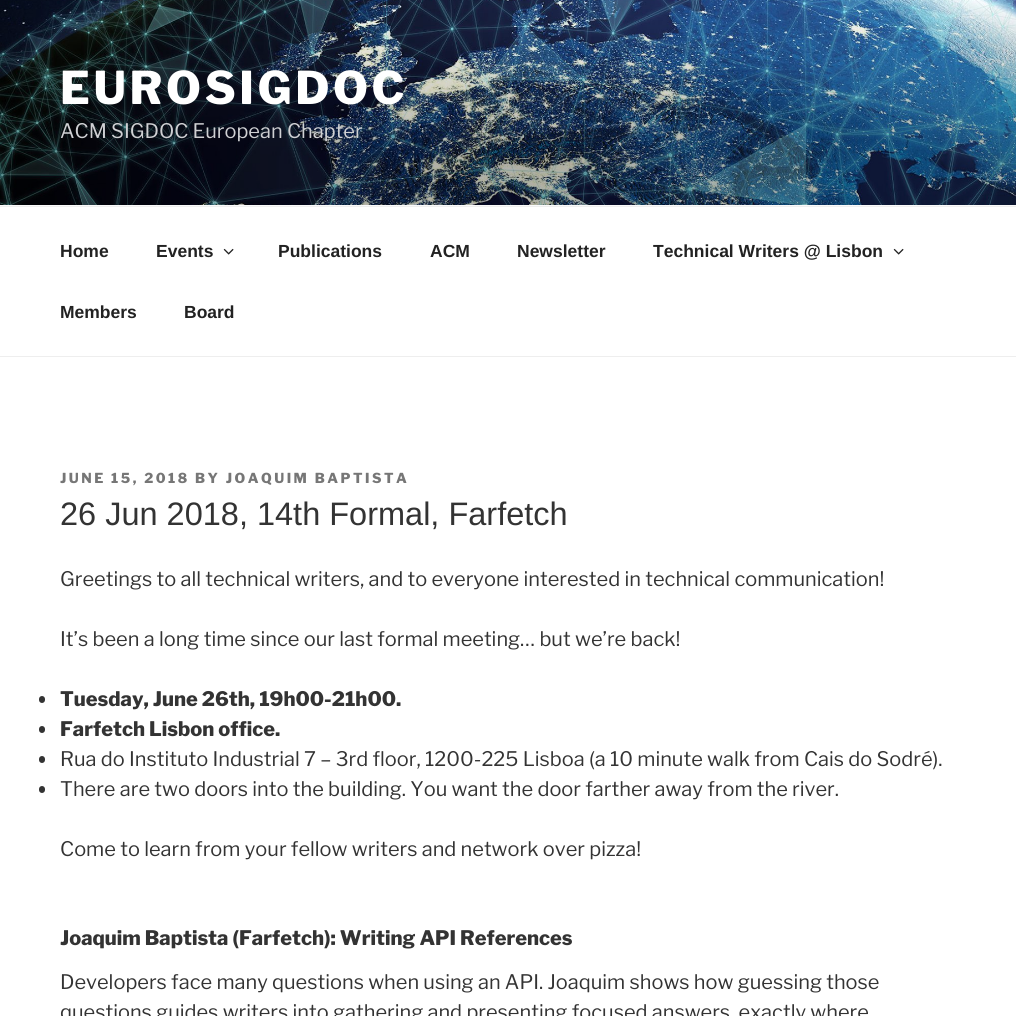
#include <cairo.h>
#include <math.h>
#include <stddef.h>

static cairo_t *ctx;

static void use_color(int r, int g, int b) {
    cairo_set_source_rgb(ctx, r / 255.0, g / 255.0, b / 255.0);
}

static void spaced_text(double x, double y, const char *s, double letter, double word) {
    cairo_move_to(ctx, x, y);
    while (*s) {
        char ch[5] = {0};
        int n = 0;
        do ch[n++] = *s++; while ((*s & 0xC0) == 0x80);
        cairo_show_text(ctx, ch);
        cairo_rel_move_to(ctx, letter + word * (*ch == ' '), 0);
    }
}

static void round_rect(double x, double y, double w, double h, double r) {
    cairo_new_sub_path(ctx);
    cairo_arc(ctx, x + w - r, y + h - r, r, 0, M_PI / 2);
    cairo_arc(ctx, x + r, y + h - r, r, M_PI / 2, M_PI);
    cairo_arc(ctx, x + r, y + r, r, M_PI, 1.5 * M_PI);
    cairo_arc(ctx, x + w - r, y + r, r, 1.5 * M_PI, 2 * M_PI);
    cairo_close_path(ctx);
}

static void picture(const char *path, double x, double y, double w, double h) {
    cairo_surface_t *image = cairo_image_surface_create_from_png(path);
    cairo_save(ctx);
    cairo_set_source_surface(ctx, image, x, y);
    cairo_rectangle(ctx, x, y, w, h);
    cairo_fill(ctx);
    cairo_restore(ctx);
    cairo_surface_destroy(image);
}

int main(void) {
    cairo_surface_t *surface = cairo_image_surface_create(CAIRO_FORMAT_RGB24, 1016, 1016);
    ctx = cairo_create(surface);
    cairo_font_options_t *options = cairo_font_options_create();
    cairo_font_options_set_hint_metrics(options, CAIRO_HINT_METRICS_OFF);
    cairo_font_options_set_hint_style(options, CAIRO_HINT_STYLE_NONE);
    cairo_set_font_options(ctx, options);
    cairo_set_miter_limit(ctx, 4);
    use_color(255, 255, 255);
    cairo_paint(ctx);
    use_color(250, 250, 250);
    cairo_rectangle(ctx, 0, 205, 1016, 1);
    cairo_fill(ctx);
    picture("img1.png", 0, 0, 1016, 205);
    cairo_select_font_face(ctx, "Libre Franklin Thin", CAIRO_FONT_SLANT_NORMAL, CAIRO_FONT_WEIGHT_NORMAL);
    cairo_set_font_size(ctx, 45);
    use_color(255, 255, 255);
    spaced_text(60, 104, "EUROSIGDOC", 3.6, 0);
    cairo_select_font_face(ctx, "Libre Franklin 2 Thin", CAIRO_FONT_SLANT_NORMAL, CAIRO_FONT_WEIGHT_NORMAL);
    cairo_set_font_size(ctx, 20);
    use_color(207, 208, 211);
    cairo_move_to(ctx, 60, 138);
    cairo_show_text(ctx, "ACM SIGDOC European Chapter");
    use_color(238, 238, 238);
    cairo_rectangle(ctx, 0, 206, 1016, 1);
    cairo_fill(ctx);
    cairo_rectangle(ctx, 0, 356, 1016, 1);
    cairo_fill(ctx);
    cairo_select_font_face(ctx, "Liberation Sans", CAIRO_FONT_SLANT_NORMAL, CAIRO_FONT_WEIGHT_BOLD);
    cairo_set_font_size(ctx, 17.5);
    use_color(34, 34, 34);
    cairo_move_to(ctx, 60, 257);
    cairo_show_text(ctx, "Home");
    cairo_move_to(ctx, 156, 257);
    cairo_show_text(ctx, "Events");
    picture("img2.png", 223, 248, 11, 7);
    cairo_move_to(ctx, 278, 257);
    cairo_show_text(ctx, "Publications");
    cairo_move_to(ctx, 430, 257);
    cairo_show_text(ctx, "ACM");
    cairo_move_to(ctx, 517, 257);
    cairo_show_text(ctx, "Newsletter");
    cairo_move_to(ctx, 653, 257);
    cairo_show_text(ctx, "Technical Writers @ Lisbon");
    picture("img2.png", 893, 248, 11, 7);
    cairo_move_to(ctx, 60, 318);
    cairo_show_text(ctx, "Members");
    cairo_move_to(ctx, 184, 318);
    cairo_show_text(ctx, "Board");
    cairo_select_font_face(ctx, "Libre Franklin Thin", CAIRO_FONT_SLANT_NORMAL, CAIRO_FONT_WEIGHT_NORMAL);
    cairo_set_font_size(ctx, 13.75);
    use_color(118, 118, 118);
    spaced_text(60, 483, "JUNE 15, 2018 BY JOAQUIM BAPTISTA", 2.5, 0);
    cairo_select_font_face(ctx, "Liberation Sans", CAIRO_FONT_SLANT_NORMAL, CAIRO_FONT_WEIGHT_NORMAL);
    cairo_set_font_size(ctx, 32.5);
    use_color(51, 51, 51);
    cairo_move_to(ctx, 60, 525);
    cairo_show_text(ctx, "26 Jun 2018, 14th Formal, Farfetch");
    cairo_select_font_face(ctx, "Libre Franklin 2 Thin", CAIRO_FONT_SLANT_NORMAL, CAIRO_FONT_WEIGHT_NORMAL);
    cairo_set_font_size(ctx, 20);
    cairo_move_to(ctx, 60, 586);
    cairo_show_text(ctx, "Greetings to all technical writers, and to everyone interested in technical communication!");
    cairo_move_to(ctx, 60, 646);
    cairo_show_text(ctx, "It’s been a long time since our last formal meeting… but we’re back!");
    round_rect(39, 696, 6, 7, 3);
    cairo_fill(ctx);
    cairo_select_font_face(ctx, "Libre Franklin Thin", CAIRO_FONT_SLANT_NORMAL, CAIRO_FONT_WEIGHT_NORMAL);
    cairo_move_to(ctx, 60, 706);
    cairo_show_text(ctx, "Tuesday, June 26th, 19h00-21h00.");
    round_rect(39, 726, 6, 7, 3);
    cairo_fill(ctx);
    cairo_move_to(ctx, 60, 736);
    cairo_show_text(ctx, "Farfetch Lisbon office.");
    round_rect(39, 756, 6, 7, 3);
    cairo_fill(ctx);
    cairo_select_font_face(ctx, "Libre Franklin 2 Thin", CAIRO_FONT_SLANT_NORMAL, CAIRO_FONT_WEIGHT_NORMAL);
    cairo_move_to(ctx, 60, 766);
    cairo_show_text(ctx, "Rua do Instituto Industrial 7 – 3rd floor, 1200-225 Lisboa (a 10 minute walk from Cais do Sodré).");
    round_rect(39, 786, 6, 7, 3);
    cairo_fill(ctx);
    cairo_move_to(ctx, 60, 796);
    cairo_show_text(ctx, "There are two doors into the building. You want the door farther away from the river.");
    cairo_move_to(ctx, 60, 856);
    cairo_show_text(ctx, "Come to learn from your fellow writers and network over pizza!");
    cairo_select_font_face(ctx, "Libre Franklin Thin", CAIRO_FONT_SLANT_NORMAL, CAIRO_FONT_WEIGHT_NORMAL);
    cairo_move_to(ctx, 60, 945);
    cairo_show_text(ctx, "Joaquim Baptista (Farfetch): Writing API References");
    cairo_select_font_face(ctx, "Libre Franklin 2 Thin", CAIRO_FONT_SLANT_NORMAL, CAIRO_FONT_WEIGHT_NORMAL);
    cairo_move_to(ctx, 60, 989);
    cairo_show_text(ctx, "Developers face many questions when using an API. Joaquim shows how guessing those");
    cairo_move_to(ctx, 60, 1019);
    cairo_show_text(ctx, "questions guides writers into gathering and presenting focused answers, exactly where");
    cairo_surface_write_to_png(surface, "result.png");
    cairo_font_options_destroy(options);
    cairo_destroy(ctx);
    cairo_surface_destroy(surface);
    return 0;
}
